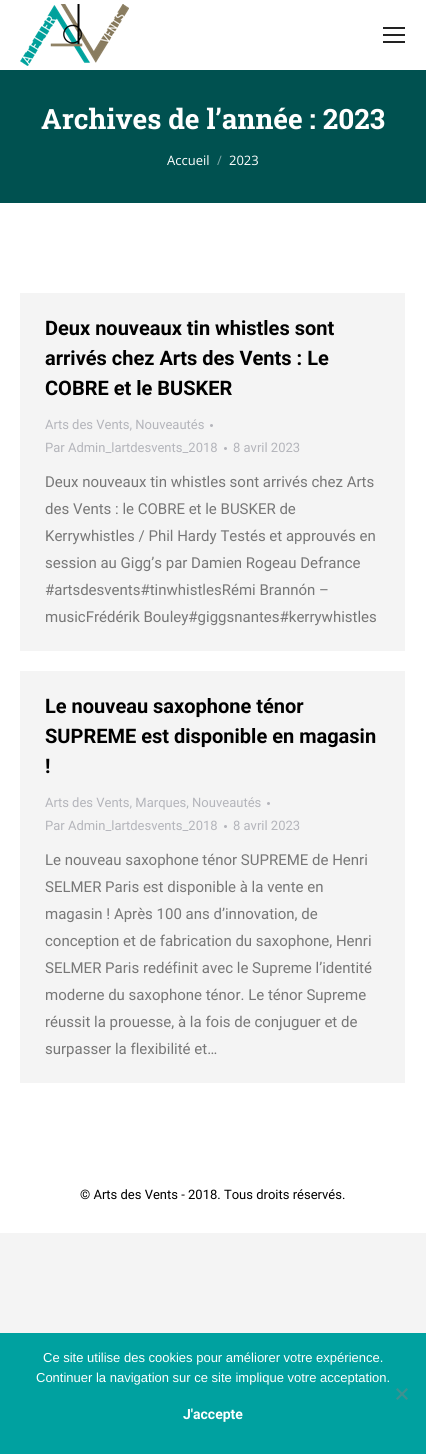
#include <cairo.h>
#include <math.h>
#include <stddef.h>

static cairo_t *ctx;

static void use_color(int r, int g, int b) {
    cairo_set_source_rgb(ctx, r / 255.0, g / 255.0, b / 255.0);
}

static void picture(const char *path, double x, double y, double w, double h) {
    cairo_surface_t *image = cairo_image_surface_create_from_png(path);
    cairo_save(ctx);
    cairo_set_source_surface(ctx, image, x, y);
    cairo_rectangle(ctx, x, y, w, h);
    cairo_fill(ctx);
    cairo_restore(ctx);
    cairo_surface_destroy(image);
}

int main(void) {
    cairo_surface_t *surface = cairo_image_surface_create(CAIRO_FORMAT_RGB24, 426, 1454);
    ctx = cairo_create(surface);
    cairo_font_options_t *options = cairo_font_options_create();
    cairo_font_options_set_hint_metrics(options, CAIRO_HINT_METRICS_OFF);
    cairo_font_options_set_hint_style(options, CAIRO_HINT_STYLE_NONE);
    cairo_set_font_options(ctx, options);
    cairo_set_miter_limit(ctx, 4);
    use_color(244, 244, 244);
    cairo_paint(ctx);
    use_color(255, 255, 255);
    cairo_rectangle(ctx, 0, 0, 426, 1233);
    cairo_fill(ctx);
    picture("img1.png", 20, 4, 109, 62);
    use_color(34, 34, 34);
    cairo_rectangle(ctx, 383, 27, 22, 2);
    cairo_fill(ctx);
    cairo_rectangle(ctx, 383, 34, 22, 2);
    cairo_fill(ctx);
    cairo_rectangle(ctx, 383, 41, 22, 2);
    cairo_fill(ctx);
    use_color(0, 81, 80);
    cairo_rectangle(ctx, 0, 70, 426, 133);
    cairo_fill(ctx);
    cairo_select_font_face(ctx, "Roboto Slab", CAIRO_FONT_SLANT_NORMAL, CAIRO_FONT_WEIGHT_BOLD);
    cairo_set_font_size(ctx, 28);
    use_color(255, 255, 255);
    cairo_move_to(ctx, 41, 129);
    cairo_show_text(ctx, "Archives de l’année : 2023");
    cairo_select_font_face(ctx, "Open Sans", CAIRO_FONT_SLANT_NORMAL, CAIRO_FONT_WEIGHT_NORMAL);
    cairo_set_font_size(ctx, 13);
    cairo_move_to(ctx, 167, 165);
    cairo_show_text(ctx, "Accueil");
    use_color(128, 168, 168);
    cairo_move_to(ctx, 217, 165);
    cairo_show_text(ctx, "/");
    use_color(255, 255, 255);
    cairo_move_to(ctx, 229, 165);
    cairo_show_text(ctx, "2023");
    use_color(244, 244, 244);
    cairo_rectangle(ctx, 20, 293, 385, 358);
    cairo_fill(ctx);
    cairo_select_font_face(ctx, "Roboto", CAIRO_FONT_SLANT_NORMAL, CAIRO_FONT_WEIGHT_BOLD);
    cairo_set_font_size(ctx, 20);
    use_color(0, 0, 0);
    cairo_move_to(ctx, 45, 335);
    cairo_show_text(ctx, "Deux nouveaux tin whistles sont");
    cairo_move_to(ctx, 45, 365);
    cairo_show_text(ctx, "arrivés chez Arts des Vents : Le");
    cairo_move_to(ctx, 45, 395);
    cairo_show_text(ctx, "COBRE et le BUSKER");
    cairo_select_font_face(ctx, "Roboto", CAIRO_FONT_SLANT_NORMAL, CAIRO_FONT_WEIGHT_NORMAL);
    cairo_set_font_size(ctx, 13);
    use_color(180, 181, 187);
    cairo_move_to(ctx, 45, 429);
    cairo_show_text(ctx, "Arts des Vents, Nouveautés");
    cairo_new_path(ctx);
    cairo_arc(ctx, 211.5, 425.5, 1.5, 0, 2 * M_PI);
    cairo_fill(ctx);
    cairo_move_to(ctx, 45, 452);
    cairo_show_text(ctx, "Par Admin_lartdesvents_2018");
    cairo_new_path(ctx);
    cairo_arc(ctx, 225.5, 448.5, 1.5, 0, 2 * M_PI);
    cairo_fill(ctx);
    cairo_move_to(ctx, 233, 452);
    cairo_show_text(ctx, "8 avril 2023");
    cairo_set_font_size(ctx, 15);
    use_color(119, 119, 119);
    cairo_move_to(ctx, 45, 487);
    cairo_show_text(ctx, "Deux nouveaux tin whistles sont arrivés chez Arts");
    cairo_move_to(ctx, 45, 514);
    cairo_show_text(ctx, "des Vents : le COBRE et le BUSKER de");
    cairo_move_to(ctx, 45, 541);
    cairo_show_text(ctx, "Kerrywhistles / Phil Hardy Testés et approuvés en");
    cairo_move_to(ctx, 45, 568);
    cairo_show_text(ctx, "session au Gigg’s par Damien Rogeau Defrance");
    cairo_move_to(ctx, 45, 595);
    cairo_show_text(ctx, "#artsdesvents#tinwhistlesRémi Brannón –");
    cairo_move_to(ctx, 45, 622);
    cairo_show_text(ctx, "musicFrédérik Bouley#giggsnantes#kerrywhistles");
    use_color(244, 244, 244);
    cairo_rectangle(ctx, 20, 671, 385, 412);
    cairo_fill(ctx);
    cairo_select_font_face(ctx, "Roboto", CAIRO_FONT_SLANT_NORMAL, CAIRO_FONT_WEIGHT_BOLD);
    cairo_set_font_size(ctx, 20);
    use_color(0, 0, 0);
    cairo_move_to(ctx, 45, 713);
    cairo_show_text(ctx, "Le nouveau saxophone ténor");
    cairo_move_to(ctx, 45, 743);
    cairo_show_text(ctx, "SUPREME est disponible en magasin");
    cairo_move_to(ctx, 45, 773);
    cairo_show_text(ctx, "!");
    cairo_select_font_face(ctx, "Roboto", CAIRO_FONT_SLANT_NORMAL, CAIRO_FONT_WEIGHT_NORMAL);
    cairo_set_font_size(ctx, 13);
    use_color(180, 181, 187);
    cairo_move_to(ctx, 45, 807);
    cairo_show_text(ctx, "Arts des Vents, Marques, Nouveautés");
    cairo_new_path(ctx);
    cairo_arc(ctx, 268.5, 803.5, 1.5, 0, 2 * M_PI);
    cairo_fill(ctx);
    cairo_move_to(ctx, 45, 830);
    cairo_show_text(ctx, "Par Admin_lartdesvents_2018");
    cairo_new_path(ctx);
    cairo_arc(ctx, 225.5, 826.5, 1.5, 0, 2 * M_PI);
    cairo_fill(ctx);
    cairo_move_to(ctx, 233, 830);
    cairo_show_text(ctx, "8 avril 2023");
    cairo_set_font_size(ctx, 15);
    use_color(119, 119, 119);
    cairo_move_to(ctx, 45, 865);
    cairo_show_text(ctx, "Le nouveau saxophone ténor SUPREME de Henri");
    cairo_move_to(ctx, 45, 892);
    cairo_show_text(ctx, "SELMER Paris est disponible à la vente en");
    cairo_move_to(ctx, 45, 919);
    cairo_show_text(ctx, "magasin ! Après 100 ans d’innovation, de");
    cairo_move_to(ctx, 45, 946);
    cairo_show_text(ctx, "conception et de fabrication du saxophone, Henri");
    cairo_move_to(ctx, 45, 973);
    cairo_show_text(ctx, "SELMER Paris redéfinit avec le Supreme l’identité");
    cairo_move_to(ctx, 45, 1000);
    cairo_show_text(ctx, "moderne du saxophone ténor. Le ténor Supreme");
    cairo_move_to(ctx, 45, 1027);
    cairo_show_text(ctx, "réussit la prouesse, à la fois de conjuguer et de");
    cairo_move_to(ctx, 45, 1054);
    cairo_show_text(ctx, "surpasser la flexibilité et…");
    cairo_set_font_size(ctx, 13);
    use_color(0, 0, 0);
    cairo_move_to(ctx, 80, 1199);
    cairo_show_text(ctx, "© Arts des Vents - 2018. Tous droits réservés.");
    use_color(0, 161, 160);
    cairo_rectangle(ctx, 0, 1333, 426, 121);
    cairo_fill(ctx);
    cairo_select_font_face(ctx, "Liberation Sans", CAIRO_FONT_SLANT_NORMAL, CAIRO_FONT_WEIGHT_NORMAL);
    use_color(255, 255, 255);
    cairo_move_to(ctx, 43, 1362);
    cairo_show_text(ctx, "Ce site utilise des cookies pour améliorer votre expérience.");
    cairo_move_to(ctx, 36, 1382);
    cairo_show_text(ctx, "Continuer la navigation sur ce site implique votre acceptation.");
    use_color(64, 145, 144);
    cairo_new_path(ctx);
    cairo_move_to(ctx, 406.5, 1388);
    cairo_line_to(ctx, 408, 1389.5);
    cairo_line_to(ctx, 397.5, 1400);
    cairo_line_to(ctx, 396, 1398.5);
    cairo_close_path(ctx);
    cairo_fill(ctx);
    cairo_new_path(ctx);
    cairo_move_to(ctx, 396, 1389.5);
    cairo_line_to(ctx, 397.5, 1388);
    cairo_line_to(ctx, 408, 1398.5);
    cairo_line_to(ctx, 406.5, 1400);
    cairo_close_path(ctx);
    cairo_fill(ctx);
    cairo_select_font_face(ctx, "Roboto", CAIRO_FONT_SLANT_NORMAL, CAIRO_FONT_WEIGHT_BOLD);
    cairo_set_font_size(ctx, 14);
    use_color(255, 255, 255);
    cairo_move_to(ctx, 183, 1419);
    cairo_show_text(ctx, "J'accepte");
    cairo_surface_write_to_png(surface, "result.png");
    cairo_font_options_destroy(options);
    cairo_destroy(ctx);
    cairo_surface_destroy(surface);
    return 0;
}
